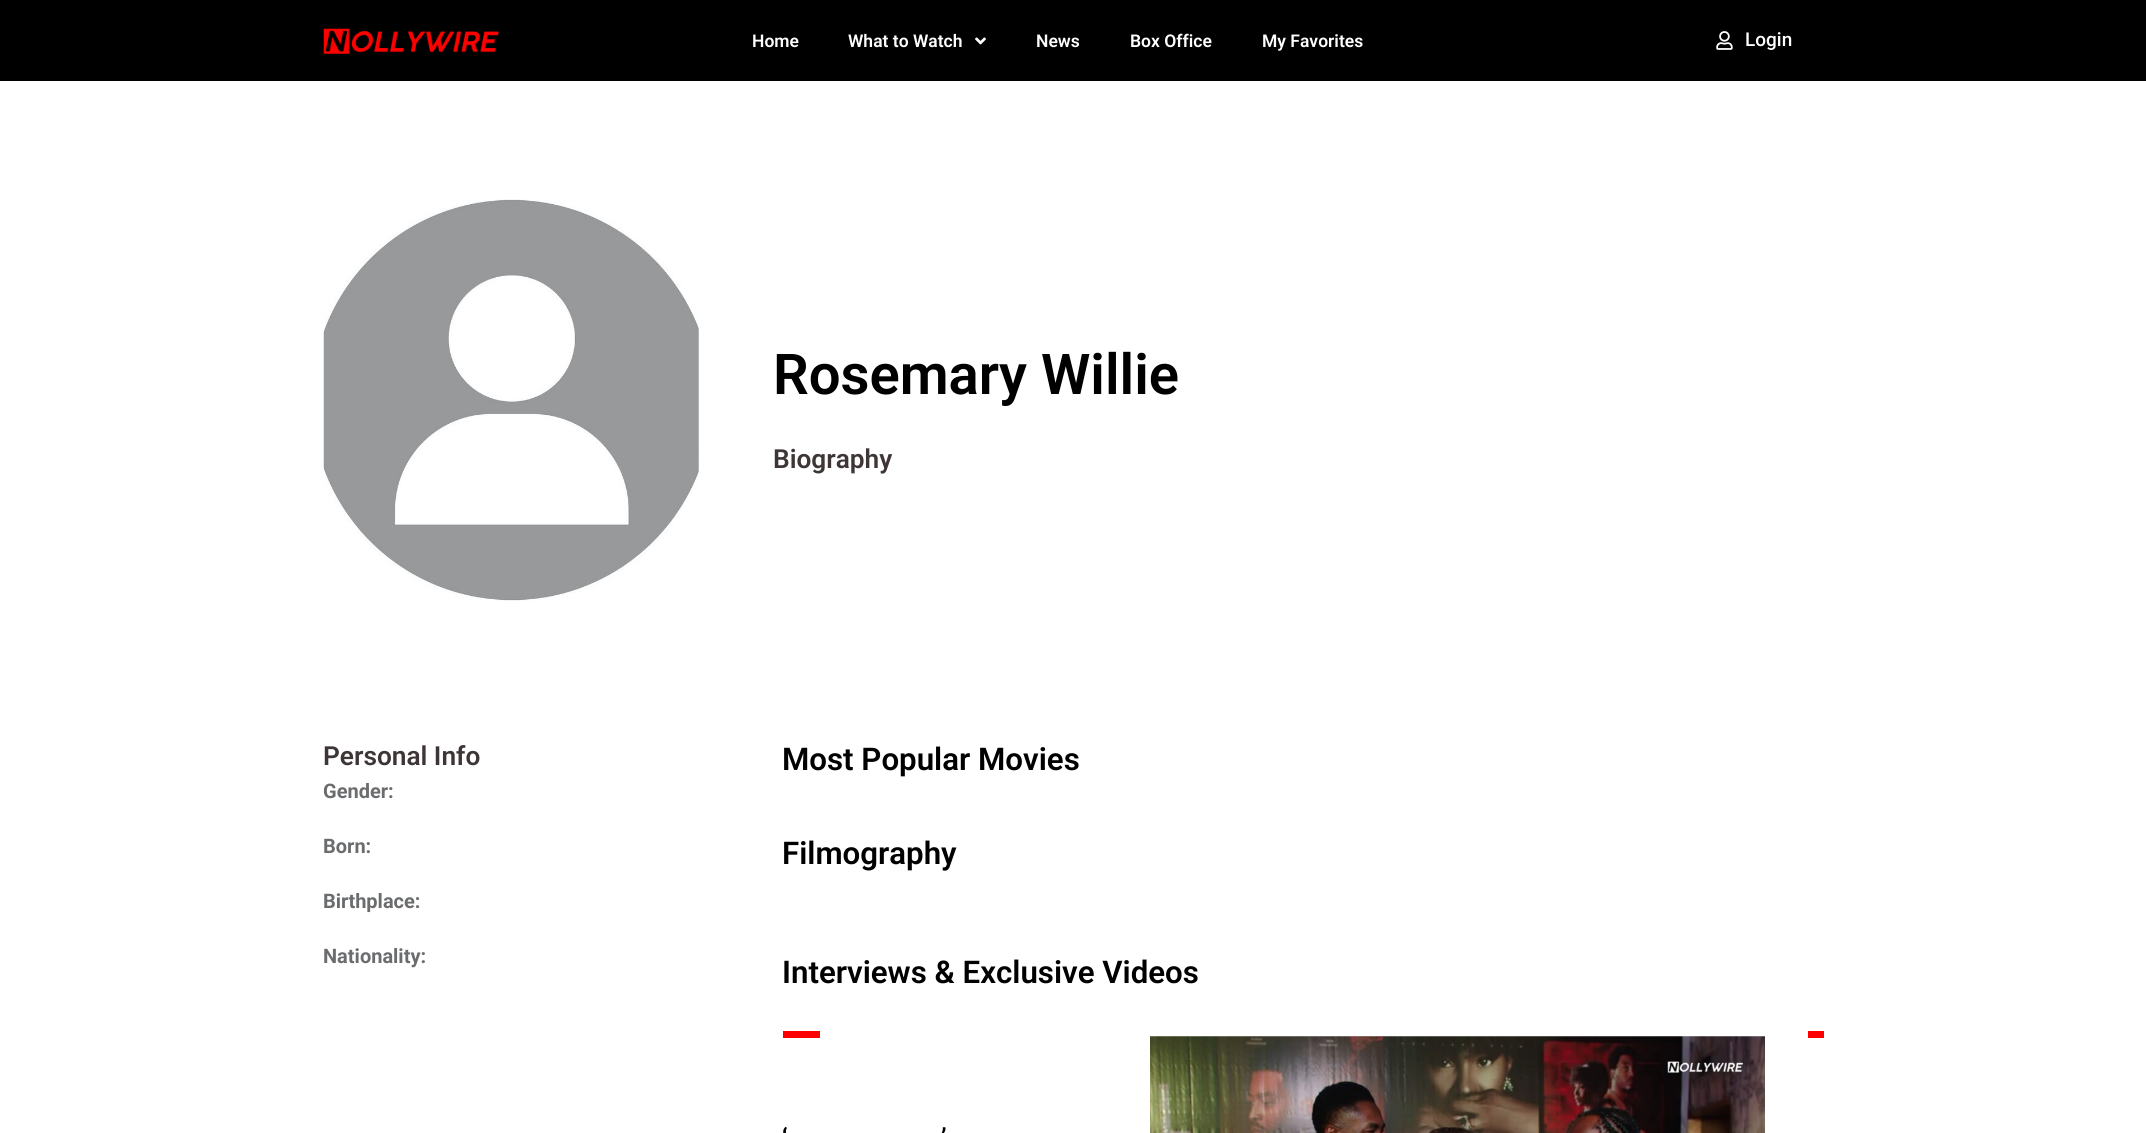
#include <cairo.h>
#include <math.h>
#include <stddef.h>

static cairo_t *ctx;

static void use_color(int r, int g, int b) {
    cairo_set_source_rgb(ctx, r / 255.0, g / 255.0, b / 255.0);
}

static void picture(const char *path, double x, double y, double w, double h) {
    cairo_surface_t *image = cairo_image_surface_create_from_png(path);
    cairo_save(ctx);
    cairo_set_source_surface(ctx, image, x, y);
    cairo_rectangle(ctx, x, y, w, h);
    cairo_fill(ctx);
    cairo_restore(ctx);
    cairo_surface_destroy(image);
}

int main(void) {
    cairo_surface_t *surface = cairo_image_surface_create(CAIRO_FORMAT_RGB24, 2146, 1133);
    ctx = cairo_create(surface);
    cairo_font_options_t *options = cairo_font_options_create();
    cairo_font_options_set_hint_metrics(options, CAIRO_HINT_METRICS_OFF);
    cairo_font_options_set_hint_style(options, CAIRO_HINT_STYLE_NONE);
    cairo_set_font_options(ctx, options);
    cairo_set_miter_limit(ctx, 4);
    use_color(255, 255, 255);
    cairo_paint(ctx);
    use_color(0, 0, 0);
    cairo_rectangle(ctx, 0, 0, 2146, 81);
    cairo_fill(ctx);
    picture("img1.png", 323, 28, 176, 26);
    cairo_select_font_face(ctx, "Roboto SemiBold", CAIRO_FONT_SLANT_NORMAL, CAIRO_FONT_WEIGHT_NORMAL);
    cairo_set_font_size(ctx, 17.5);
    use_color(255, 255, 255);
    cairo_move_to(ctx, 752, 47);
    cairo_show_text(ctx, "Home");
    cairo_move_to(ctx, 848, 47);
    cairo_show_text(ctx, "What to Watch");
    picture("img2.png", 975, 37, 11, 8);
    cairo_move_to(ctx, 1036, 47);
    cairo_show_text(ctx, "News");
    cairo_move_to(ctx, 1130, 47);
    cairo_show_text(ctx, "Box Office");
    cairo_move_to(ctx, 1262, 47);
    cairo_show_text(ctx, "My Favorites");
    picture("img3.png", 1716, 31, 17, 19);
    cairo_select_font_face(ctx, "Roboto Medium", CAIRO_FONT_SLANT_NORMAL, CAIRO_FONT_WEIGHT_NORMAL);
    cairo_set_font_size(ctx, 19);
    cairo_move_to(ctx, 1745, 46);
    cairo_show_text(ctx, "Login");
    picture("img4.png", 323, 199, 376, 402);
    cairo_select_font_face(ctx, "Roboto SemiBold", CAIRO_FONT_SLANT_NORMAL, CAIRO_FONT_WEIGHT_NORMAL);
    cairo_set_font_size(ctx, 56.25);
    use_color(0, 0, 0);
    cairo_move_to(ctx, 773, 394);
    cairo_show_text(ctx, "Rosemary Willie");
    cairo_set_font_size(ctx, 26.25);
    use_color(62, 54, 54);
    cairo_move_to(ctx, 773, 468);
    cairo_show_text(ctx, "Biography");
    cairo_move_to(ctx, 323, 765);
    cairo_show_text(ctx, "Personal Info");
    cairo_select_font_face(ctx, "Roboto", CAIRO_FONT_SLANT_NORMAL, CAIRO_FONT_WEIGHT_BOLD);
    cairo_set_font_size(ctx, 20);
    use_color(106, 108, 110);
    cairo_move_to(ctx, 323, 798);
    cairo_show_text(ctx, "Gender:");
    cairo_move_to(ctx, 323, 853);
    cairo_show_text(ctx, "Born:");
    cairo_move_to(ctx, 323, 908);
    cairo_show_text(ctx, "Birthplace:");
    cairo_move_to(ctx, 323, 963);
    cairo_show_text(ctx, "Nationality:");
    cairo_select_font_face(ctx, "Roboto SemiBold", CAIRO_FONT_SLANT_NORMAL, CAIRO_FONT_WEIGHT_NORMAL);
    cairo_set_font_size(ctx, 31.25);
    use_color(0, 0, 0);
    cairo_move_to(ctx, 782, 770);
    cairo_show_text(ctx, "Most Popular Movies");
    cairo_move_to(ctx, 782, 864);
    cairo_show_text(ctx, "Filmography");
    cairo_move_to(ctx, 782, 983);
    cairo_show_text(ctx, "Interviews & Exclusive Videos");
    use_color(255, 0, 0);
    cairo_rectangle(ctx, 1808, 1031, 16, 7);
    cairo_fill(ctx);
    cairo_rectangle(ctx, 783, 1031, 37, 7);
    cairo_fill(ctx);
    cairo_set_font_size(ctx, 25);
    use_color(0, 0, 0);
    cairo_move_to(ctx, 782, 1146);
    cairo_show_text(ctx, "‘");
    cairo_move_to(ctx, 941, 1146);
    cairo_show_text(ctx, "’");
    picture("img5.png", 1150, 1036, 615, 97);
    cairo_surface_write_to_png(surface, "result.png");
    cairo_font_options_destroy(options);
    cairo_destroy(ctx);
    cairo_surface_destroy(surface);
    return 0;
}
